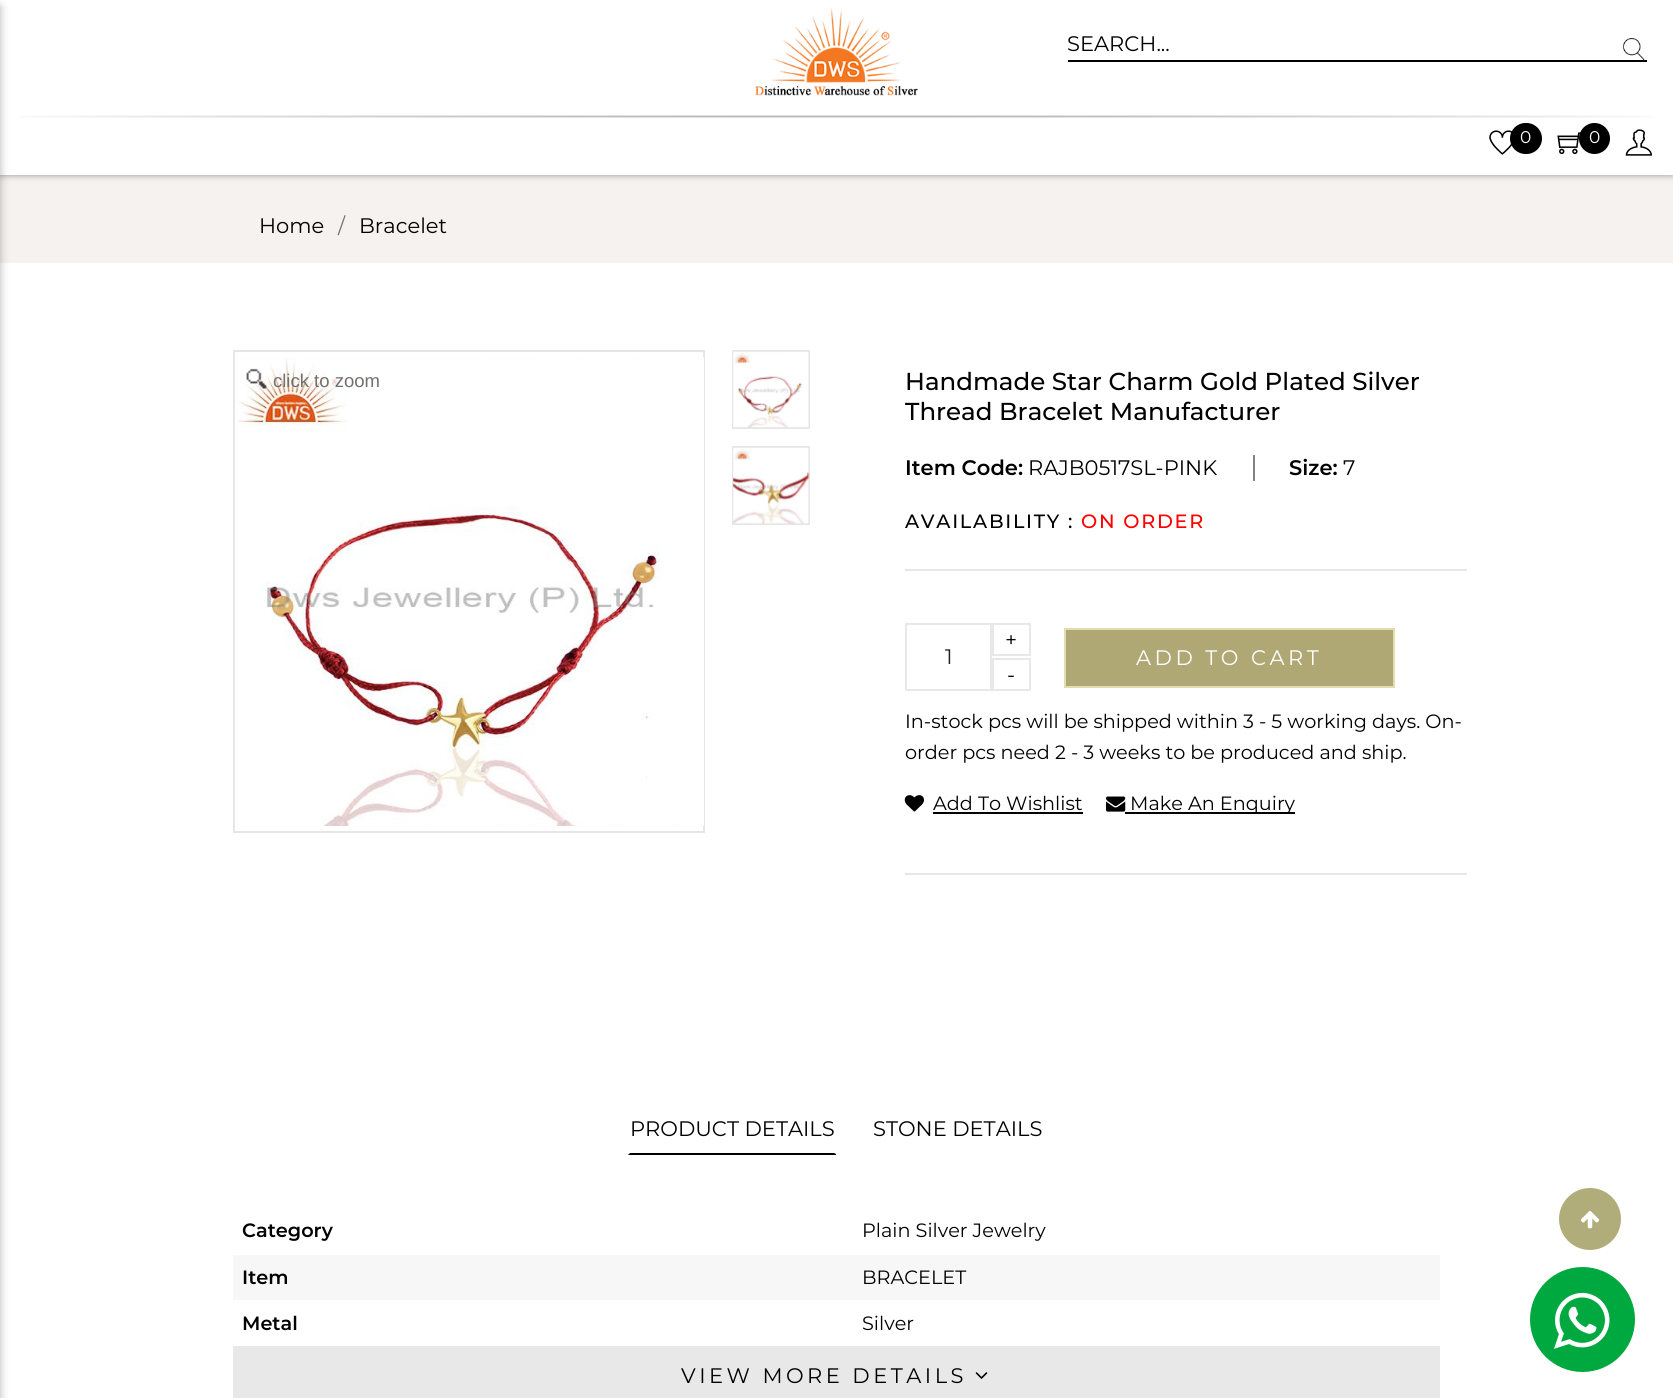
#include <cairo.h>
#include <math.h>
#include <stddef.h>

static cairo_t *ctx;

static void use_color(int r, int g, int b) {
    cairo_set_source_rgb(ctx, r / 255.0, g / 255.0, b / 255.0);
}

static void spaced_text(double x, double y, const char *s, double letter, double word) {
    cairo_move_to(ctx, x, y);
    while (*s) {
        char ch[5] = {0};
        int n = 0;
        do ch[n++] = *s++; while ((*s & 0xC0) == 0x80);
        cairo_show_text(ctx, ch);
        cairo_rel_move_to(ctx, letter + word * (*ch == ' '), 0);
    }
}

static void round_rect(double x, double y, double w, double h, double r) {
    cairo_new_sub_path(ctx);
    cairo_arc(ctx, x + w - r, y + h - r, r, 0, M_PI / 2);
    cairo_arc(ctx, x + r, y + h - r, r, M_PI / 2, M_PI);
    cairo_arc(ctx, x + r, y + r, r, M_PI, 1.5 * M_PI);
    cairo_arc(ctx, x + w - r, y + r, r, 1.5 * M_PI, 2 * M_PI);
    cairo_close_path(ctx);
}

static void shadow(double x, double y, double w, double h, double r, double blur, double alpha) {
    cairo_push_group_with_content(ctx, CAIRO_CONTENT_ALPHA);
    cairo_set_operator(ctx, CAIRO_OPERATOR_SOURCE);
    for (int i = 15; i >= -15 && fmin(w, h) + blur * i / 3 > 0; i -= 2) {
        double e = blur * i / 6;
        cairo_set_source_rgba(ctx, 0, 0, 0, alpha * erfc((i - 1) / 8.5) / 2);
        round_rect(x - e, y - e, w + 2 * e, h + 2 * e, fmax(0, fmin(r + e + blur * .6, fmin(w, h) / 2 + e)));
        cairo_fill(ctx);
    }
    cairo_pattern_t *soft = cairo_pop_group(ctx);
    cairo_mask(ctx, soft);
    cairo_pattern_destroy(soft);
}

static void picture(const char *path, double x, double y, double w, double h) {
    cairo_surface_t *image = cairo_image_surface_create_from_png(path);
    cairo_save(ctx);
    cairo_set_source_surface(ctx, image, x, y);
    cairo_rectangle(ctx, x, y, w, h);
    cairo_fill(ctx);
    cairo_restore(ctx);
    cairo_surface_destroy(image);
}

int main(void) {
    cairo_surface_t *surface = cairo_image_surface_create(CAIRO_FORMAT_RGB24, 1673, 1398);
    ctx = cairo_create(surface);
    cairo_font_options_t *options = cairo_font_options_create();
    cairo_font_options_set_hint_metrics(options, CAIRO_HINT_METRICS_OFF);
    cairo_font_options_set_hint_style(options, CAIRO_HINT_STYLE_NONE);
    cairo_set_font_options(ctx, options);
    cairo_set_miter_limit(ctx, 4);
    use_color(255, 255, 255);
    cairo_paint(ctx);
    use_color(246, 242, 239);
    cairo_rectangle(ctx, 0, 175, 1673, 88);
    cairo_fill(ctx);
    use_color(0, 0, 0);
    shadow(0, 0, 1673, 175, 0, 3.5, 0.4);
    use_color(255, 255, 255);
    cairo_rectangle(ctx, 0, 0, 1673, 175);
    cairo_fill(ctx);
    picture("img1.png", 755, 8, 163, 88);
    use_color(0, 0, 0);
    cairo_rectangle(ctx, 1068, 60, 579, 2);
    cairo_fill(ctx);
    cairo_select_font_face(ctx, "Montserrat", CAIRO_FONT_SLANT_NORMAL, CAIRO_FONT_WEIGHT_NORMAL);
    cairo_set_font_size(ctx, 21);
    cairo_move_to(ctx, 1067, 51);
    cairo_show_text(ctx, "SEARCH...");
    picture("img2.png", 1622, 38, 23, 22);
    picture("img3.png", 20, 115, 1633, 3);
    use_color(0, 0, 0);
    shadow(-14, 7, 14, 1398, 0, 4.5, 0.3);
    picture("img4.png", 1489, 130, 23, 25);
    use_color(0, 0, 0);
    round_rect(1510, 123, 32, 31, 15.5);
    cairo_fill(ctx);
    cairo_set_font_size(ctx, 17);
    use_color(255, 255, 255);
    cairo_move_to(ctx, 1520, 143);
    cairo_show_text(ctx, "0");
    picture("img5.png", 1557, 132, 24, 23);
    use_color(0, 0, 0);
    cairo_arc(ctx, 1594.5, 138.5, 15.5, 0, 2 * M_PI);
    cairo_fill(ctx);
    use_color(255, 255, 255);
    cairo_move_to(ctx, 1589, 143);
    cairo_show_text(ctx, "0");
    picture("img6.png", 1625, 129, 27, 27);
    cairo_set_font_size(ctx, 21);
    use_color(0, 0, 0);
    cairo_move_to(ctx, 259, 233);
    cairo_show_text(ctx, "Home");
    use_color(108, 117, 125);
    cairo_move_to(ctx, 338, 233);
    cairo_show_text(ctx, "/");
    use_color(0, 0, 0);
    cairo_move_to(ctx, 359, 233);
    cairo_show_text(ctx, "Bracelet");
    cairo_rectangle(ctx, 234, 351, 470, 481);
    use_color(230, 230, 230);
    cairo_stroke(ctx);
    picture("img7.png", 237, 357, 467, 469);
    picture("img8.png", 246, 368, 21, 21);
    cairo_select_font_face(ctx, "Liberation Sans", CAIRO_FONT_SLANT_NORMAL, CAIRO_FONT_WEIGHT_NORMAL);
    cairo_set_font_size(ctx, 18.5);
    use_color(113, 112, 111);
    cairo_move_to(ctx, 273, 387);
    cairo_show_text(ctx, "click to zoom");
    cairo_rectangle(ctx, 733, 351, 76, 77);
    use_color(230, 230, 230);
    cairo_stroke(ctx);
    picture("img9.png", 733, 351, 76, 77);
    cairo_rectangle(ctx, 733, 447, 76, 77);
    cairo_stroke(ctx);
    picture("img10.png", 733, 447, 77, 77);
    cairo_select_font_face(ctx, "Montserrat Medium", CAIRO_FONT_SLANT_NORMAL, CAIRO_FONT_WEIGHT_NORMAL);
    cairo_set_font_size(ctx, 24.5);
    use_color(0, 0, 0);
    cairo_move_to(ctx, 905, 390);
    cairo_show_text(ctx, "Handmade Star Charm Gold Plated Silver");
    cairo_move_to(ctx, 905, 420);
    cairo_show_text(ctx, "Thread Bracelet Manufacturer");
    use_color(130, 130, 130);
    cairo_rectangle(ctx, 1253, 455, 2, 26);
    cairo_fill(ctx);
    cairo_select_font_face(ctx, "Montserrat SemiBold", CAIRO_FONT_SLANT_NORMAL, CAIRO_FONT_WEIGHT_NORMAL);
    cairo_set_font_size(ctx, 21);
    use_color(0, 0, 0);
    cairo_move_to(ctx, 905, 475);
    cairo_show_text(ctx, "Item Code:");
    cairo_select_font_face(ctx, "Montserrat", CAIRO_FONT_SLANT_NORMAL, CAIRO_FONT_WEIGHT_NORMAL);
    cairo_move_to(ctx, 1028, 475);
    cairo_show_text(ctx, "RAJB0517SL-PINK");
    cairo_select_font_face(ctx, "Montserrat SemiBold", CAIRO_FONT_SLANT_NORMAL, CAIRO_FONT_WEIGHT_NORMAL);
    cairo_move_to(ctx, 1289, 475);
    cairo_show_text(ctx, "Size:");
    cairo_select_font_face(ctx, "Montserrat", CAIRO_FONT_SLANT_NORMAL, CAIRO_FONT_WEIGHT_NORMAL);
    cairo_move_to(ctx, 1343, 475);
    cairo_show_text(ctx, "7");
    cairo_select_font_face(ctx, "Montserrat Medium", CAIRO_FONT_SLANT_NORMAL, CAIRO_FONT_WEIGHT_NORMAL);
    cairo_set_font_size(ctx, 19.25);
    spaced_text(905, 528, "AVAILABILITY :", 1.75, 0);
    use_color(255, 0, 0);
    spaced_text(1081, 528, "ON ORDER", 1.75, 0);
    use_color(230, 230, 230);
    cairo_rectangle(ctx, 905, 569, 562, 2);
    cairo_fill(ctx);
    cairo_rectangle(ctx, 993, 624, 37, 31);
    use_color(232, 232, 232);
    cairo_stroke(ctx);
    cairo_select_font_face(ctx, "Montserrat", CAIRO_FONT_SLANT_NORMAL, CAIRO_FONT_WEIGHT_NORMAL);
    cairo_set_font_size(ctx, 21);
    use_color(0, 0, 0);
    cairo_move_to(ctx, 1005, 647);
    cairo_show_text(ctx, "+");
    cairo_rectangle(ctx, 906, 624, 85, 66);
    use_color(232, 232, 232);
    cairo_stroke(ctx);
    use_color(35, 35, 35);
    cairo_move_to(ctx, 945, 664);
    cairo_show_text(ctx, "1");
    cairo_rectangle(ctx, 993, 659, 37, 31);
    use_color(232, 232, 232);
    cairo_stroke(ctx);
    use_color(0, 0, 0);
    cairo_move_to(ctx, 1007, 682);
    cairo_show_text(ctx, "-");
    use_color(175, 167, 116);
    cairo_rectangle(ctx, 1065, 629, 329, 58);
    cairo_fill_preserve(ctx);
    use_color(225, 221, 173);
    cairo_stroke(ctx);
    use_color(255, 255, 255);
    spaced_text(1136, 665, "ADD TO CART", 3.5, 0);
    cairo_set_font_size(ctx, 19.25);
    use_color(0, 0, 0);
    cairo_move_to(ctx, 905, 728);
    cairo_show_text(ctx, "In-stock pcs will be shipped within 3 - 5 working days. On-");
    cairo_move_to(ctx, 905, 759);
    cairo_show_text(ctx, "order pcs need 2 - 3 weeks to be produced and ship.");
    picture("img11.png", 904, 795, 20, 17);
    cairo_move_to(ctx, 933, 810);
    cairo_show_text(ctx, "Add To Wishlist");
    cairo_rectangle(ctx, 933, 812, 150, 2);
    cairo_fill(ctx);
    picture("img12.png", 1106, 796, 20, 16);
    cairo_rectangle(ctx, 1125, 812, 170, 2);
    cairo_fill(ctx);
    cairo_move_to(ctx, 1130, 810);
    cairo_show_text(ctx, "Make An Enquiry");
    use_color(230, 230, 230);
    cairo_rectangle(ctx, 905, 873, 562, 2);
    cairo_fill(ctx);
    use_color(0, 0, 0);
    cairo_new_path(ctx);
    cairo_move_to(ctx, 628, 1155);
    cairo_line_to(ctx, 836, 1155);
    cairo_line_to(ctx, 836, 1154);
    cairo_line_to(ctx, 834, 1153);
    cairo_line_to(ctx, 630, 1153);
    cairo_close_path(ctx);
    cairo_fill(ctx);
    cairo_set_font_size(ctx, 21);
    cairo_move_to(ctx, 630, 1136);
    cairo_show_text(ctx, "PRODUCT DETAILS");
    cairo_move_to(ctx, 873, 1136);
    cairo_show_text(ctx, "STONE DETAILS");
    cairo_select_font_face(ctx, "Montserrat SemiBold", CAIRO_FONT_SLANT_NORMAL, CAIRO_FONT_WEIGHT_NORMAL);
    cairo_set_font_size(ctx, 19.25);
    cairo_move_to(ctx, 242, 1237);
    cairo_show_text(ctx, "Category");
    cairo_select_font_face(ctx, "Montserrat", CAIRO_FONT_SLANT_NORMAL, CAIRO_FONT_WEIGHT_NORMAL);
    cairo_move_to(ctx, 862, 1237);
    cairo_show_text(ctx, "Plain Silver Jewelry");
    use_color(247, 247, 247);
    cairo_rectangle(ctx, 233, 1255, 1207, 45);
    cairo_fill(ctx);
    cairo_select_font_face(ctx, "Montserrat SemiBold", CAIRO_FONT_SLANT_NORMAL, CAIRO_FONT_WEIGHT_NORMAL);
    use_color(0, 0, 0);
    cairo_move_to(ctx, 242, 1284);
    cairo_show_text(ctx, "Item");
    cairo_select_font_face(ctx, "Montserrat", CAIRO_FONT_SLANT_NORMAL, CAIRO_FONT_WEIGHT_NORMAL);
    cairo_move_to(ctx, 862, 1284);
    cairo_show_text(ctx, "BRACELET");
    cairo_select_font_face(ctx, "Montserrat SemiBold", CAIRO_FONT_SLANT_NORMAL, CAIRO_FONT_WEIGHT_NORMAL);
    cairo_move_to(ctx, 242, 1330);
    cairo_show_text(ctx, "Metal");
    cairo_select_font_face(ctx, "Montserrat", CAIRO_FONT_SLANT_NORMAL, CAIRO_FONT_WEIGHT_NORMAL);
    cairo_move_to(ctx, 862, 1330);
    cairo_show_text(ctx, "Silver");
    use_color(232, 232, 232);
    cairo_rectangle(ctx, 233, 1346, 1207, 52);
    cairo_fill(ctx);
    cairo_set_font_size(ctx, 21);
    use_color(0, 0, 0);
    spaced_text(681, 1383, "VIEW MORE DETAILS", 3.5, 0);
    picture("img13.png", 975, 1372, 13, 7);
    use_color(177, 173, 123);
    cairo_arc(ctx, 1590, 1219, 31, 0, 2 * M_PI);
    cairo_fill(ctx);
    picture("img14.png", 1580, 1211, 20, 18);
    use_color(0, 169, 63);
    cairo_arc(ctx, 1582.5, 1319.5, 52.5, 0, 2 * M_PI);
    cairo_fill(ctx);
    picture("img15.png", 1554, 1292, 56, 57);
    cairo_surface_write_to_png(surface, "result.png");
    cairo_font_options_destroy(options);
    cairo_destroy(ctx);
    cairo_surface_destroy(surface);
    return 0;
}
